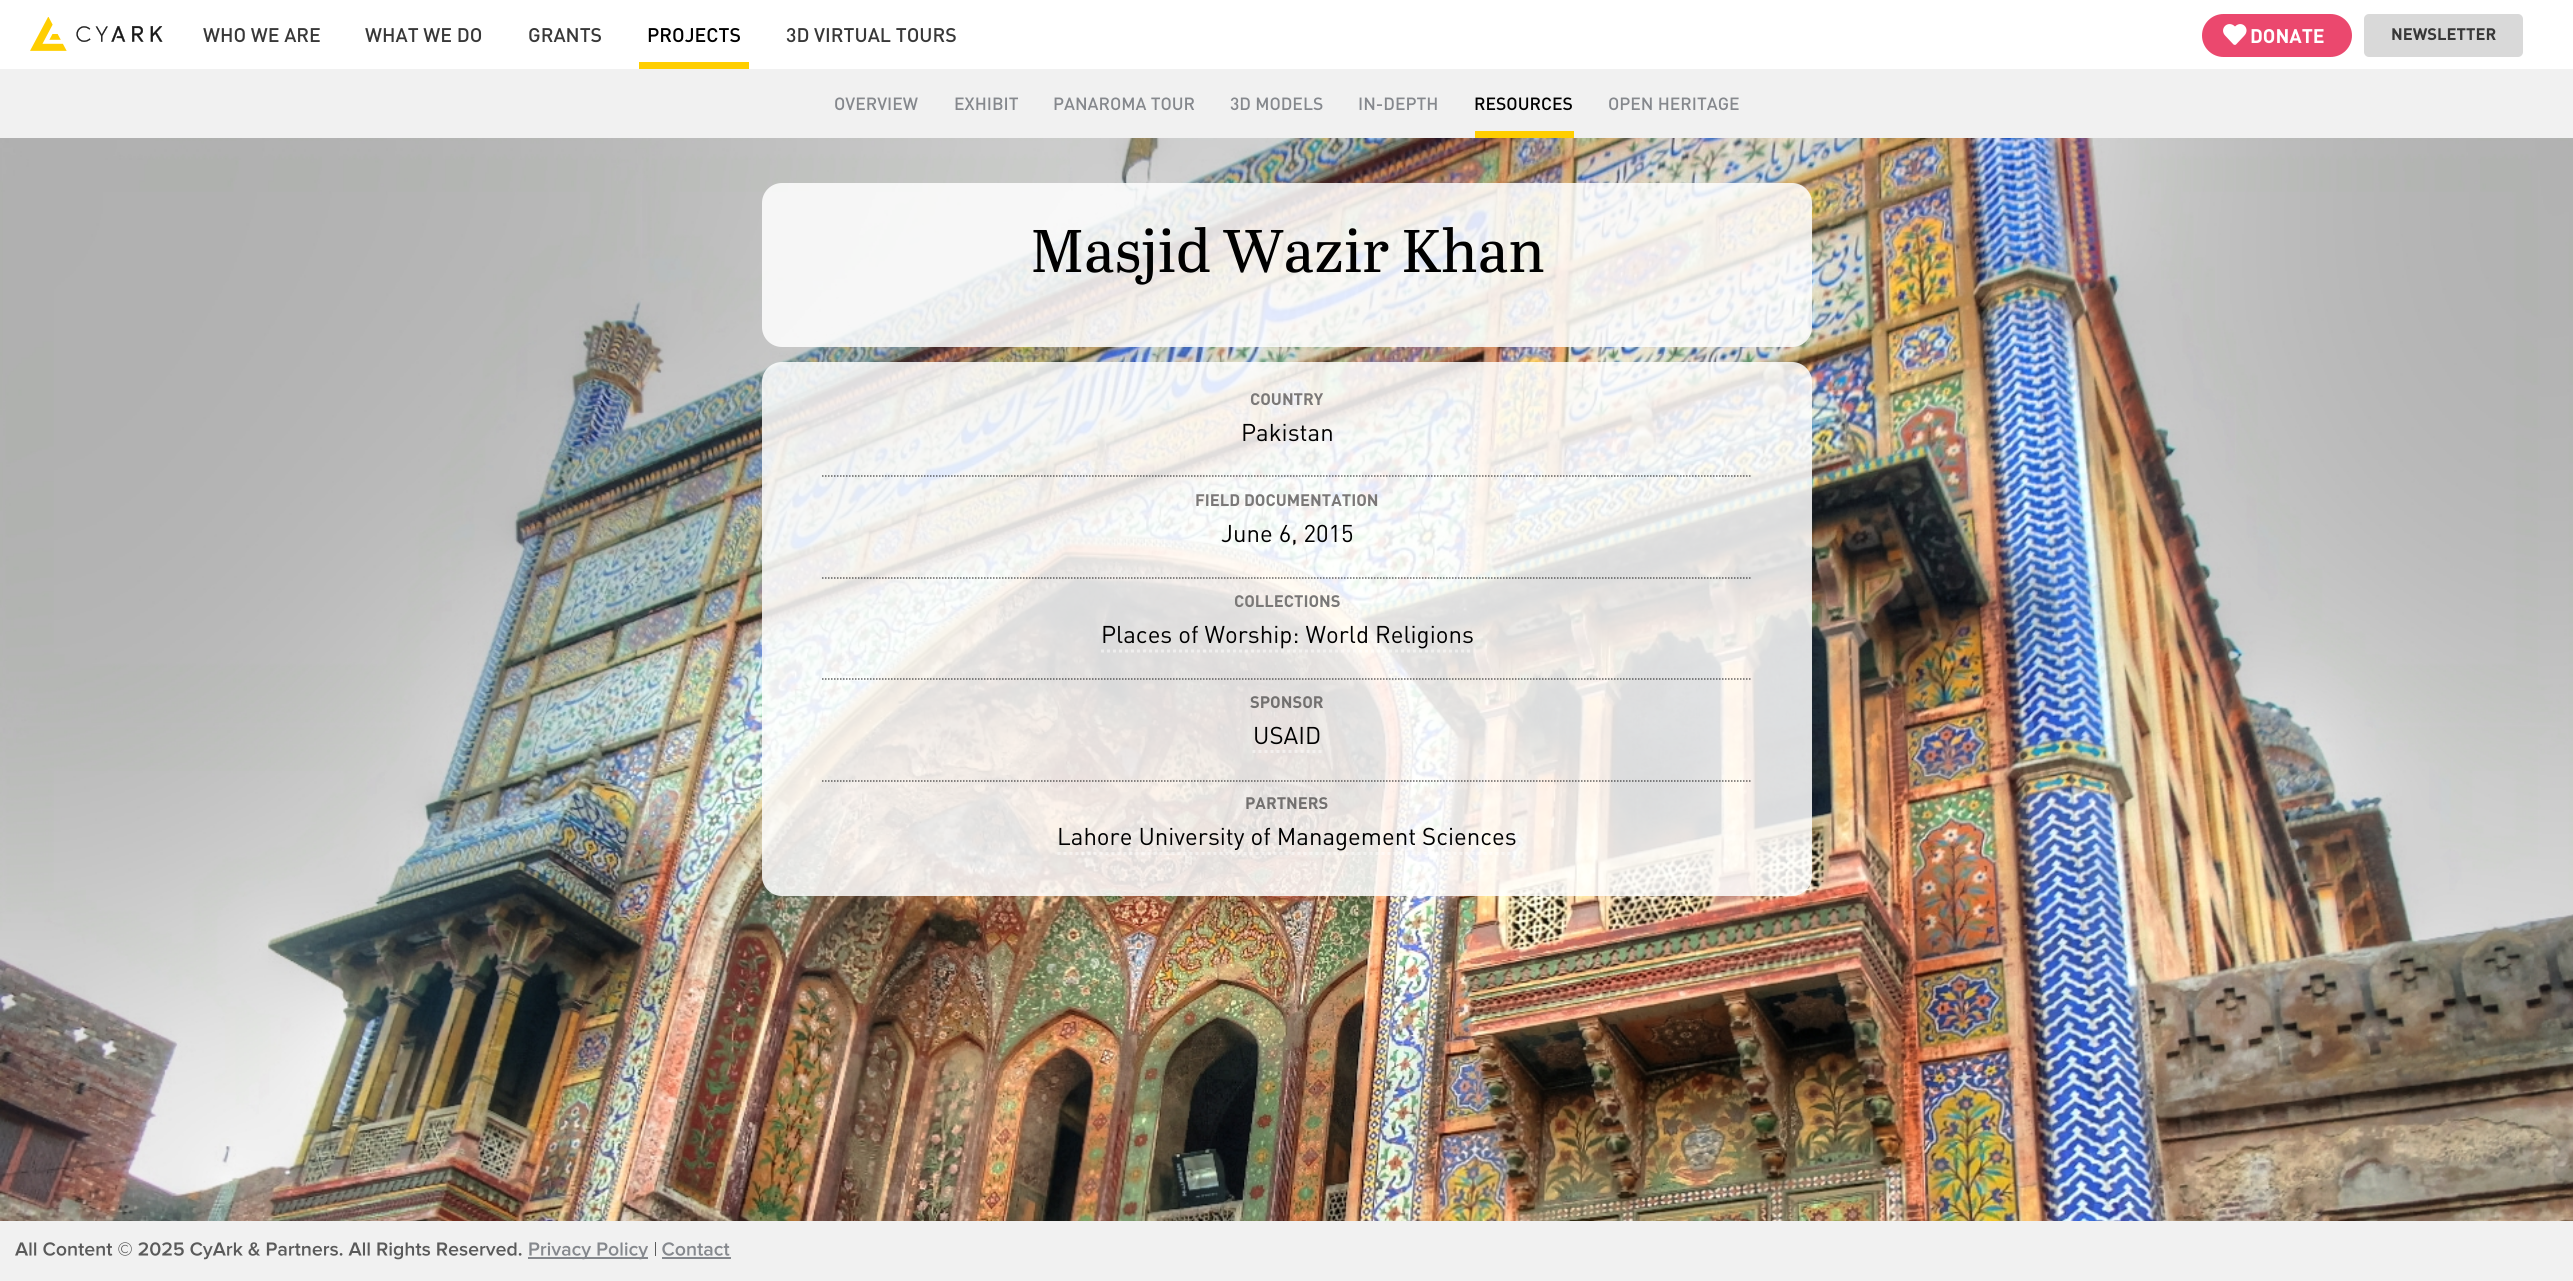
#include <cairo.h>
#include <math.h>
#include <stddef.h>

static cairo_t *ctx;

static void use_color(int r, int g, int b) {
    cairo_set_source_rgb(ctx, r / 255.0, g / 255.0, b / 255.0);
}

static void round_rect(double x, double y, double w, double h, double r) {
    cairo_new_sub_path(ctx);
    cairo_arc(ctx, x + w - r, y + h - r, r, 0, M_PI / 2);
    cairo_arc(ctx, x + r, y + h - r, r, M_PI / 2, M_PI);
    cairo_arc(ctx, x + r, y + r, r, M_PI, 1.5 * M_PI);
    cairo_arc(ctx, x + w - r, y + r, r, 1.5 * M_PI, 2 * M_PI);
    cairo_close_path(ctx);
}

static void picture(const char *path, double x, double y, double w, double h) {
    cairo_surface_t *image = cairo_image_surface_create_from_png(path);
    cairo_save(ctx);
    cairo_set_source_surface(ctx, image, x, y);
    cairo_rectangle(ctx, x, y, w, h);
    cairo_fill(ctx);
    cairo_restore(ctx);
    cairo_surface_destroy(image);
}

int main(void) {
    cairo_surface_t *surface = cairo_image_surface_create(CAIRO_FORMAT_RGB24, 2573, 1281);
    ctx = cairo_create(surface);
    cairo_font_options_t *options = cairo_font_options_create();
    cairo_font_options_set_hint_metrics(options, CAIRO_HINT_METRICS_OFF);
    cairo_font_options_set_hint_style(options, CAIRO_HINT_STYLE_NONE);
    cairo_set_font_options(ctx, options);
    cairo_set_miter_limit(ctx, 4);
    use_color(255, 255, 255);
    cairo_paint(ctx);
    picture("img1.png", 30, 17, 133, 34);
    cairo_select_font_face(ctx, "DIN Medium", CAIRO_FONT_SLANT_NORMAL, CAIRO_FONT_WEIGHT_NORMAL);
    cairo_set_font_size(ctx, 19.5);
    use_color(56, 56, 56);
    cairo_move_to(ctx, 203, 42);
    cairo_show_text(ctx, "WHO WE ARE");
    cairo_move_to(ctx, 365, 42);
    cairo_show_text(ctx, "WHAT WE DO");
    cairo_move_to(ctx, 528, 42);
    cairo_show_text(ctx, "GRANTS");
    use_color(0, 0, 0);
    cairo_move_to(ctx, 647, 42);
    cairo_show_text(ctx, "PROJECTS");
    use_color(255, 206, 0);
    cairo_rectangle(ctx, 639, 62, 110, 7);
    cairo_fill(ctx);
    use_color(56, 56, 56);
    cairo_move_to(ctx, 786, 42);
    cairo_show_text(ctx, "3D VIRTUAL TOURS");
    use_color(235, 72, 110);
    round_rect(2202, 14, 150, 43, 21.5);
    cairo_fill(ctx);
    use_color(255, 255, 255);
    cairo_new_path(ctx);
    cairo_move_to(ctx, 2244, 36);
    cairo_line_to(ctx, 2236, 44.5);
    cairo_line_to(ctx, 2235, 45);
    cairo_line_to(ctx, 2233.5, 44.5);
    cairo_line_to(ctx, 2225.5, 36);
    cairo_curve_to(ctx, 2218.5, 29, 2228, 19.5, 2235, 26.5);
    cairo_curve_to(ctx, 2242, 19.5, 2251, 29, 2244, 36);
    cairo_close_path(ctx);
    cairo_fill(ctx);
    cairo_select_font_face(ctx, "DIN", CAIRO_FONT_SLANT_NORMAL, CAIRO_FONT_WEIGHT_BOLD);
    cairo_move_to(ctx, 2250, 43);
    cairo_show_text(ctx, "DONATE");
    use_color(217, 217, 217);
    round_rect(2364, 14, 159, 43, 5);
    cairo_fill(ctx);
    cairo_set_font_size(ctx, 16.5);
    use_color(56, 56, 56);
    cairo_move_to(ctx, 2391, 40);
    cairo_show_text(ctx, "NEWSLETTER");
    use_color(241, 241, 241);
    cairo_rectangle(ctx, 0, 69, 2573, 69);
    cairo_fill(ctx);
    cairo_select_font_face(ctx, "DIN Medium", CAIRO_FONT_SLANT_NORMAL, CAIRO_FONT_WEIGHT_NORMAL);
    cairo_set_font_size(ctx, 17.5);
    use_color(133, 136, 141);
    cairo_move_to(ctx, 834, 110);
    cairo_show_text(ctx, "OVERVIEW");
    cairo_move_to(ctx, 954, 110);
    cairo_show_text(ctx, "EXHIBIT");
    cairo_move_to(ctx, 1053, 110);
    cairo_show_text(ctx, "PANAROMA TOUR");
    cairo_move_to(ctx, 1230, 110);
    cairo_show_text(ctx, "3D MODELS");
    cairo_move_to(ctx, 1358, 110);
    cairo_show_text(ctx, "IN-DEPTH");
    use_color(0, 0, 0);
    cairo_move_to(ctx, 1474, 110);
    cairo_show_text(ctx, "RESOURCES");
    use_color(255, 206, 0);
    cairo_rectangle(ctx, 1475, 131, 99, 7);
    cairo_fill(ctx);
    use_color(133, 136, 141);
    cairo_move_to(ctx, 1608, 110);
    cairo_show_text(ctx, "OPEN HERITAGE");
    picture("img2.png", 0, 138, 2573, 1083);
    cairo_set_source_rgba(ctx, 1, 1, 1, 0.85);
    round_rect(762, 183, 1050, 164, 20);
    cairo_fill(ctx);
    cairo_select_font_face(ctx, "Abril", CAIRO_FONT_SLANT_NORMAL, CAIRO_FONT_WEIGHT_NORMAL);
    cairo_set_font_size(ctx, 60);
    use_color(0, 0, 0);
    cairo_move_to(ctx, 1030, 272);
    cairo_show_text(ctx, "Masjid Wazir Khan");
    cairo_set_source_rgba(ctx, 1, 1, 1, 0.85);
    round_rect(762, 362, 1050, 534, 20);
    cairo_fill(ctx);
    cairo_new_path(ctx);
    cairo_move_to(ctx, 822, 476);
    cairo_line_to(ctx, 1752, 476);
    cairo_set_source_rgba(ctx, 0, 0, 0, 0.6);
    cairo_set_line_width(ctx, 1.5);
    cairo_set_dash(ctx, (double[]){1.5, 1.5}, 2, 0);
    cairo_stroke(ctx);
    cairo_select_font_face(ctx, "DIN", CAIRO_FONT_SLANT_NORMAL, CAIRO_FONT_WEIGHT_BOLD);
    cairo_set_font_size(ctx, 16.5);
    use_color(122, 120, 119);
    cairo_move_to(ctx, 1250, 405);
    cairo_show_text(ctx, "COUNTRY");
    cairo_select_font_face(ctx, "DIN", CAIRO_FONT_SLANT_NORMAL, CAIRO_FONT_WEIGHT_NORMAL);
    cairo_set_font_size(ctx, 24);
    use_color(0, 0, 0);
    cairo_move_to(ctx, 1241, 441);
    cairo_show_text(ctx, "Pakistan");
    cairo_new_path(ctx);
    cairo_move_to(ctx, 822, 578);
    cairo_line_to(ctx, 1752, 578);
    cairo_set_source_rgba(ctx, 0, 0, 0, 0.6);
    cairo_stroke(ctx);
    cairo_select_font_face(ctx, "DIN", CAIRO_FONT_SLANT_NORMAL, CAIRO_FONT_WEIGHT_BOLD);
    cairo_set_font_size(ctx, 16.5);
    use_color(122, 120, 119);
    cairo_move_to(ctx, 1195, 506);
    cairo_show_text(ctx, "FIELD DOCUMENTATION");
    cairo_select_font_face(ctx, "DIN", CAIRO_FONT_SLANT_NORMAL, CAIRO_FONT_WEIGHT_NORMAL);
    cairo_set_font_size(ctx, 24);
    use_color(0, 0, 0);
    cairo_move_to(ctx, 1221, 542);
    cairo_show_text(ctx, "June 6, 2015");
    cairo_new_path(ctx);
    cairo_move_to(ctx, 822, 679);
    cairo_line_to(ctx, 1752, 679);
    cairo_set_source_rgba(ctx, 0, 0, 0, 0.6);
    cairo_stroke(ctx);
    cairo_select_font_face(ctx, "DIN", CAIRO_FONT_SLANT_NORMAL, CAIRO_FONT_WEIGHT_BOLD);
    cairo_set_font_size(ctx, 16.5);
    use_color(122, 120, 119);
    cairo_move_to(ctx, 1234, 607);
    cairo_show_text(ctx, "COLLECTIONS");
    cairo_select_font_face(ctx, "DIN", CAIRO_FONT_SLANT_NORMAL, CAIRO_FONT_WEIGHT_NORMAL);
    cairo_set_font_size(ctx, 24);
    use_color(0, 0, 0);
    cairo_move_to(ctx, 1101, 643);
    cairo_show_text(ctx, "Places of Worship: World Religions");
    cairo_new_path(ctx);
    cairo_move_to(ctx, 1101, 651);
    cairo_line_to(ctx, 1473, 651);
    cairo_set_source_rgba(ctx, 1, 1, 1, 0.5);
    cairo_set_line_width(ctx, 3);
    cairo_set_dash(ctx, (double[]){3, 3}, 2, 0);
    cairo_stroke(ctx);
    cairo_new_path(ctx);
    cairo_move_to(ctx, 822, 781);
    cairo_line_to(ctx, 1752, 781);
    cairo_set_source_rgba(ctx, 0, 0, 0, 0.6);
    cairo_set_line_width(ctx, 1.5);
    cairo_set_dash(ctx, (double[]){1.5, 1.5}, 2, 0);
    cairo_stroke(ctx);
    cairo_select_font_face(ctx, "DIN", CAIRO_FONT_SLANT_NORMAL, CAIRO_FONT_WEIGHT_BOLD);
    cairo_set_font_size(ctx, 16.5);
    use_color(114, 112, 111);
    cairo_move_to(ctx, 1250, 708);
    cairo_show_text(ctx, "SPONSOR");
    cairo_select_font_face(ctx, "DIN", CAIRO_FONT_SLANT_NORMAL, CAIRO_FONT_WEIGHT_NORMAL);
    cairo_set_font_size(ctx, 24);
    use_color(0, 0, 0);
    cairo_move_to(ctx, 1253, 744);
    cairo_show_text(ctx, "USAID");
    cairo_new_path(ctx);
    cairo_move_to(ctx, 1252.5, 751.5);
    cairo_line_to(ctx, 1321.5, 751.5);
    cairo_set_source_rgba(ctx, 1, 1, 1, 0.5);
    cairo_set_line_width(ctx, 3);
    cairo_set_dash(ctx, (double[]){3, 3}, 2, 0);
    cairo_stroke(ctx);
    cairo_select_font_face(ctx, "DIN", CAIRO_FONT_SLANT_NORMAL, CAIRO_FONT_WEIGHT_BOLD);
    cairo_set_font_size(ctx, 16.5);
    use_color(114, 112, 111);
    cairo_move_to(ctx, 1245, 809);
    cairo_show_text(ctx, "PARTNERS");
    cairo_select_font_face(ctx, "DIN", CAIRO_FONT_SLANT_NORMAL, CAIRO_FONT_WEIGHT_NORMAL);
    cairo_set_font_size(ctx, 24);
    use_color(0, 0, 0);
    cairo_move_to(ctx, 1057, 845);
    cairo_show_text(ctx, "Lahore University of Management Sciences");
    cairo_new_path(ctx);
    cairo_move_to(ctx, 1057.5, 853.5);
    cairo_line_to(ctx, 1516.5, 853.5);
    cairo_set_source_rgba(ctx, 1, 1, 1, 0.5);
    cairo_stroke(ctx);
    use_color(241, 241, 241);
    cairo_rectangle(ctx, 0, 1221, 2573, 60);
    cairo_fill(ctx);
    picture("img3.png", 15, 1242, 507, 18);
    use_color(133, 136, 141);
    cairo_rectangle(ctx, 528, 1257, 120, 2);
    cairo_fill(ctx);
    picture("img4.png", 529, 1242, 119, 18);
    use_color(90, 90, 90);
    cairo_rectangle(ctx, 655, 1242, 1, 14);
    cairo_fill(ctx);
    picture("img5.png", 662, 1242, 68, 14);
    use_color(133, 136, 141);
    cairo_rectangle(ctx, 662, 1257, 69, 2);
    cairo_fill(ctx);
    cairo_surface_write_to_png(surface, "result.png");
    cairo_font_options_destroy(options);
    cairo_destroy(ctx);
    cairo_surface_destroy(surface);
    return 0;
}
